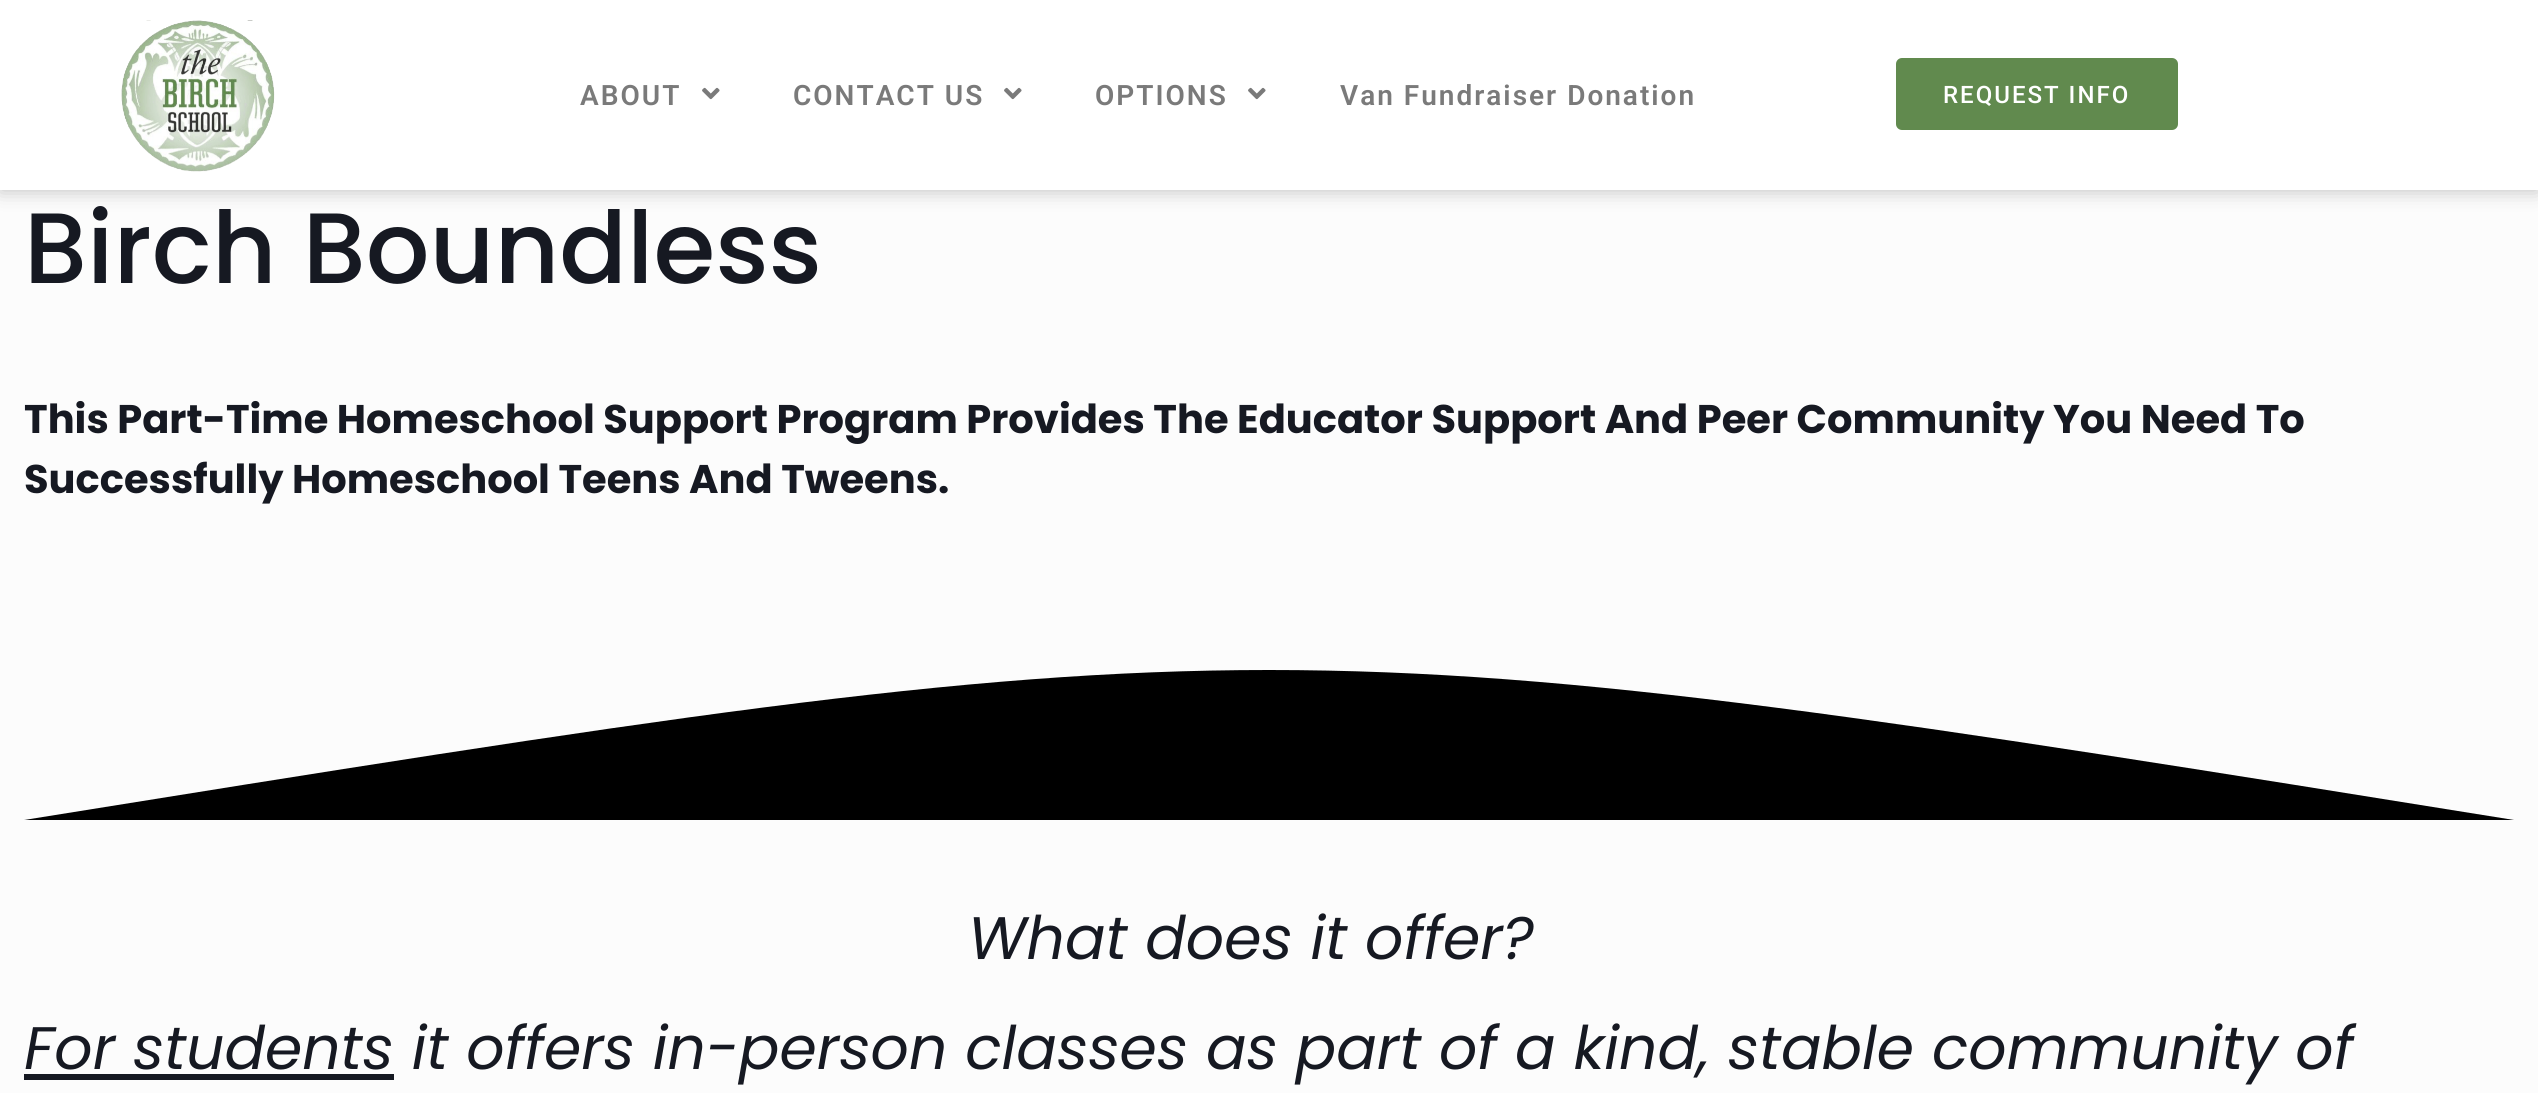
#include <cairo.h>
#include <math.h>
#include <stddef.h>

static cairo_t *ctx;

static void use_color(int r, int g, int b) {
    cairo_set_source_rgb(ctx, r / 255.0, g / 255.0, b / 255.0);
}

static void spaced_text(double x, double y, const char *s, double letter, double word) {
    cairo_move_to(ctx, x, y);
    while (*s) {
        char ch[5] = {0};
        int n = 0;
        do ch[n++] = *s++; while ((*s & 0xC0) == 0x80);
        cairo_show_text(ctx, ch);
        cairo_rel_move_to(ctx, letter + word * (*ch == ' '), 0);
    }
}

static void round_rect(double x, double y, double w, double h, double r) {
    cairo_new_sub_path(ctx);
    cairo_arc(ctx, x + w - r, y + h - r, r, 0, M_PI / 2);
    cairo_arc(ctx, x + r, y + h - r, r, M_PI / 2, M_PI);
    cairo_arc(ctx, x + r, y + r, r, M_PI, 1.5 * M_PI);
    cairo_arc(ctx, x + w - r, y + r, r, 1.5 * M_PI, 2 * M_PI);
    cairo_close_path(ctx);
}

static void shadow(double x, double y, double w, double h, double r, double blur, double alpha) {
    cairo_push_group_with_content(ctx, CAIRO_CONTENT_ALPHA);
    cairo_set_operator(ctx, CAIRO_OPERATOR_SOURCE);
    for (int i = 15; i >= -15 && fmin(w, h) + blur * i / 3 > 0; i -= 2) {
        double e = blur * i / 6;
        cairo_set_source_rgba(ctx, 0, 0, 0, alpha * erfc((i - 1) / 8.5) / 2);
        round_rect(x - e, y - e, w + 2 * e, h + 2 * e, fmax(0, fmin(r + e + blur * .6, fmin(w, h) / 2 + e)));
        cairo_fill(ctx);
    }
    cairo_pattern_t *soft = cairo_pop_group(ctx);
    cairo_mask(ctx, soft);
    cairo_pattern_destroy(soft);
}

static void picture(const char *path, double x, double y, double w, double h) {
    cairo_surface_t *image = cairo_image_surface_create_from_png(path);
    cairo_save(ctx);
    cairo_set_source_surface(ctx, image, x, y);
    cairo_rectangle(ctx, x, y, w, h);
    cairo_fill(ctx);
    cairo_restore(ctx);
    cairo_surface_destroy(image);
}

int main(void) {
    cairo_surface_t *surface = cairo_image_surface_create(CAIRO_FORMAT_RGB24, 2538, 1093);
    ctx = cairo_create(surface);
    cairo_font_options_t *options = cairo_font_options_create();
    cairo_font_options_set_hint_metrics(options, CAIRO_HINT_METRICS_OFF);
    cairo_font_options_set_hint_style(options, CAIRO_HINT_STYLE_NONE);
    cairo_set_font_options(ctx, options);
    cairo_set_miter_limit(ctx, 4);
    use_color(252, 252, 252);
    cairo_paint(ctx);
    use_color(0, 0, 0);
    shadow(0, 0, 2538, 190, 0, 10, 0.25);
    use_color(255, 255, 255);
    cairo_rectangle(ctx, 0, 0, 2538, 190);
    cairo_fill(ctx);
    picture("img1.png", 121, 20, 154, 152);
    cairo_select_font_face(ctx, "Roboto SemiBold", CAIRO_FONT_SLANT_NORMAL, CAIRO_FONT_WEIGHT_NORMAL);
    cairo_set_font_size(ctx, 28);
    use_color(122, 122, 122);
    spaced_text(580, 105, "ABOUT", 2, 0);
    picture("img2.png", 702, 87, 18, 13);
    spaced_text(793, 105, "CONTACT US", 2, 0);
    picture("img2.png", 1004, 87, 18, 13);
    spaced_text(1095, 105, "OPTIONS", 2, 0);
    picture("img2.png", 1248, 87, 18, 13);
    spaced_text(1340, 105, "Van Fundraiser Donation", 2, 0);
    use_color(97, 138, 78);
    round_rect(1896, 58, 282, 72, 6);
    cairo_fill(ctx);
    cairo_select_font_face(ctx, "Roboto Medium", CAIRO_FONT_SLANT_NORMAL, CAIRO_FONT_WEIGHT_NORMAL);
    cairo_set_font_size(ctx, 24);
    use_color(255, 255, 255);
    spaced_text(1943, 103, "REQUEST INFO", 2, 0);
    cairo_select_font_face(ctx, "Poppins Medium", CAIRO_FONT_SLANT_NORMAL, CAIRO_FONT_WEIGHT_NORMAL);
    cairo_set_font_size(ctx, 100);
    use_color(22, 25, 34);
    cairo_move_to(ctx, 24, 283);
    cairo_show_text(ctx, "Birch Boundless");
    cairo_select_font_face(ctx, "Poppins", CAIRO_FONT_SLANT_NORMAL, CAIRO_FONT_WEIGHT_BOLD);
    cairo_set_font_size(ctx, 40);
    cairo_move_to(ctx, 24, 433);
    cairo_show_text(ctx, "This Part-Time Homeschool Support Program Provides The Educator Support And Peer Community You Need To");
    cairo_move_to(ctx, 24, 493);
    cairo_show_text(ctx, "Successfully Homeschool Teens And Tweens.");
    use_color(0, 0, 0);
    cairo_new_path(ctx);
    cairo_move_to(ctx, 24, 820);
    cairo_curve_to(ctx, 1269, 620, 1269, 620, 2514, 820);
    cairo_close_path(ctx);
    cairo_fill(ctx);
    cairo_select_font_face(ctx, "Poppins", CAIRO_FONT_SLANT_ITALIC, CAIRO_FONT_WEIGHT_NORMAL);
    cairo_set_font_size(ctx, 60);
    use_color(22, 25, 34);
    cairo_move_to(ctx, 968, 959);
    cairo_show_text(ctx, "What does it offer?");
    cairo_rectangle(ctx, 24, 1074, 370, 6);
    cairo_fill(ctx);
    cairo_move_to(ctx, 24, 1069);
    cairo_show_text(ctx, "For students it offers in-person classes as part of a kind, stable community of");
    cairo_surface_write_to_png(surface, "result.png");
    cairo_font_options_destroy(options);
    cairo_destroy(ctx);
    cairo_surface_destroy(surface);
    return 0;
}
